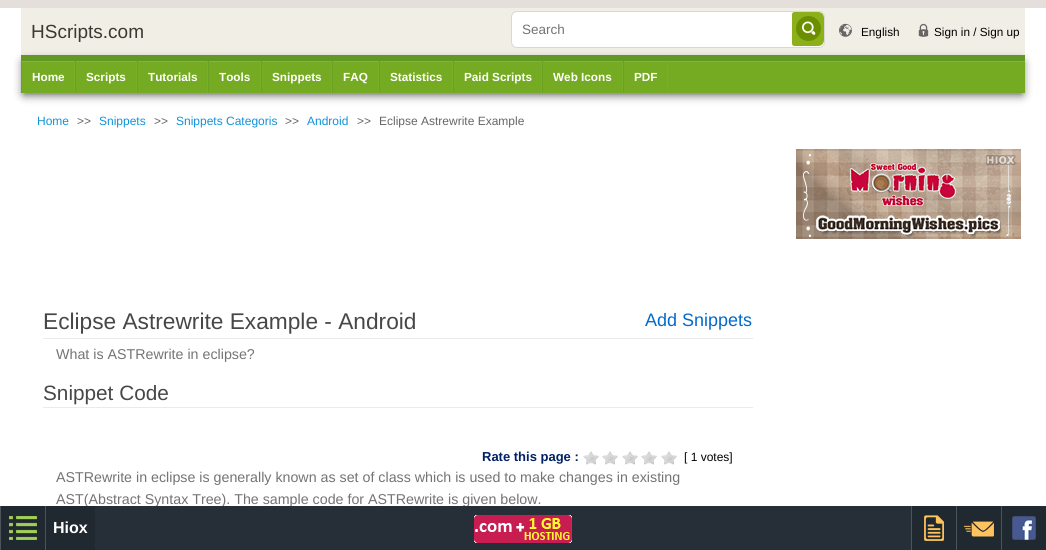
#include <cairo.h>
#include <math.h>
#include <stddef.h>

static cairo_t *ctx;

static void use_color(int r, int g, int b) {
    cairo_set_source_rgb(ctx, r / 255.0, g / 255.0, b / 255.0);
}

static void round_rect(double x, double y, double w, double h, double r) {
    cairo_new_sub_path(ctx);
    cairo_arc(ctx, x + w - r, y + h - r, r, 0, M_PI / 2);
    cairo_arc(ctx, x + r, y + h - r, r, M_PI / 2, M_PI);
    cairo_arc(ctx, x + r, y + r, r, M_PI, 1.5 * M_PI);
    cairo_arc(ctx, x + w - r, y + r, r, 1.5 * M_PI, 2 * M_PI);
    cairo_close_path(ctx);
}

static void shadow(double x, double y, double w, double h, double r, double blur, double alpha) {
    cairo_push_group_with_content(ctx, CAIRO_CONTENT_ALPHA);
    cairo_set_operator(ctx, CAIRO_OPERATOR_SOURCE);
    for (int i = 15; i >= -15 && fmin(w, h) + blur * i / 3 > 0; i -= 2) {
        double e = blur * i / 6;
        cairo_set_source_rgba(ctx, 0, 0, 0, alpha * erfc((i - 1) / 8.5) / 2);
        round_rect(x - e, y - e, w + 2 * e, h + 2 * e, fmax(0, fmin(r + e + blur * .6, fmin(w, h) / 2 + e)));
        cairo_fill(ctx);
    }
    cairo_pattern_t *soft = cairo_pop_group(ctx);
    cairo_mask(ctx, soft);
    cairo_pattern_destroy(soft);
}

static void picture(const char *path, double x, double y, double w, double h) {
    cairo_surface_t *image = cairo_image_surface_create_from_png(path);
    cairo_save(ctx);
    cairo_set_source_surface(ctx, image, x, y);
    cairo_rectangle(ctx, x, y, w, h);
    cairo_fill(ctx);
    cairo_restore(ctx);
    cairo_surface_destroy(image);
}

int main(void) {
    cairo_surface_t *surface = cairo_image_surface_create(CAIRO_FORMAT_RGB24, 1046, 550);
    ctx = cairo_create(surface);
    cairo_font_options_t *options = cairo_font_options_create();
    cairo_font_options_set_hint_metrics(options, CAIRO_HINT_METRICS_OFF);
    cairo_font_options_set_hint_style(options, CAIRO_HINT_STYLE_NONE);
    cairo_set_font_options(ctx, options);
    cairo_set_miter_limit(ctx, 4);
    use_color(255, 255, 255);
    cairo_paint(ctx);
    use_color(228, 223, 219);
    cairo_rectangle(ctx, 0, 0, 1046, 8);
    cairo_fill(ctx);
    use_color(241, 239, 229);
    cairo_rectangle(ctx, 21, 8, 1004, 47);
    cairo_fill(ctx);
    cairo_select_font_face(ctx, "Liberation Sans", CAIRO_FONT_SLANT_NORMAL, CAIRO_FONT_WEIGHT_NORMAL);
    cairo_set_font_size(ctx, 19);
    use_color(61, 56, 50);
    cairo_move_to(ctx, 31, 38);
    cairo_show_text(ctx, "HScripts.com");
    use_color(0, 0, 0);
    shadow(24, 62, 998, 32, 0, 5, 0.75);
    use_color(255, 255, 255);
    round_rect(511.5, 11.5, 313, 36, 5.5);
    cairo_fill_preserve(ctx);
    use_color(217, 216, 214);
    cairo_set_line_width(ctx, 1);
    cairo_stroke(ctx);
    cairo_set_font_size(ctx, 13.5);
    use_color(117, 115, 115);
    cairo_move_to(ctx, 522, 34);
    cairo_show_text(ctx, "Search");
    use_color(139, 176, 26);
    cairo_new_path(ctx);
    cairo_move_to(ctx, 794.5, 12);
    cairo_line_to(ctx, 818, 12);
    cairo_curve_to(ctx, 821.5, 12, 824, 14.5, 824, 18);
    cairo_line_to(ctx, 824, 40);
    cairo_curve_to(ctx, 824, 43.5, 821.5, 46, 818, 46);
    cairo_line_to(ctx, 794.5, 46);
    cairo_curve_to(ctx, 793, 46, 792, 45, 792, 43.5);
    cairo_line_to(ctx, 792, 14.5);
    cairo_curve_to(ctx, 792, 13, 793, 12, 794.5, 12);
    cairo_close_path(ctx);
    cairo_fill(ctx);
    use_color(108, 143, 0);
    cairo_arc(ctx, 808.5, 28.5, 12.5, 0, 2 * M_PI);
    cairo_fill(ctx);
    picture("img1.png", 802, 21, 14, 14);
    picture("img2.png", 839, 23, 13, 14);
    cairo_set_font_size(ctx, 11.75);
    use_color(0, 0, 0);
    cairo_move_to(ctx, 861, 36);
    cairo_show_text(ctx, "English");
    picture("img3.png", 918, 23, 11, 14);
    cairo_move_to(ctx, 934, 36);
    cairo_show_text(ctx, "Sign in / Sign up");
    use_color(133, 181, 59);
    cairo_rectangle(ctx, 21, 61, 1004, 1);
    cairo_fill(ctx);
    use_color(117, 171, 34);
    cairo_rectangle(ctx, 22, 62, 1003, 31);
    cairo_fill(ctx);
    use_color(98, 152, 38);
    cairo_rectangle(ctx, 21, 55, 1004, 6);
    cairo_fill(ctx);
    use_color(121, 175, 38);
    cairo_rectangle(ctx, 74, 61, 1, 32);
    cairo_fill(ctx);
    use_color(108, 162, 36);
    cairo_rectangle(ctx, 21, 61, 1, 32);
    cairo_fill(ctx);
    cairo_select_font_face(ctx, "Liberation Sans", CAIRO_FONT_SLANT_NORMAL, CAIRO_FONT_WEIGHT_BOLD);
    use_color(255, 255, 255);
    cairo_move_to(ctx, 32, 81);
    cairo_show_text(ctx, "Home");
    use_color(121, 175, 38);
    cairo_rectangle(ctx, 136, 61, 1, 32);
    cairo_fill(ctx);
    use_color(108, 162, 36);
    cairo_rectangle(ctx, 75, 61, 1, 32);
    cairo_fill(ctx);
    use_color(255, 255, 255);
    cairo_move_to(ctx, 86, 81);
    cairo_show_text(ctx, "Scripts");
    use_color(121, 175, 38);
    cairo_rectangle(ctx, 207, 61, 1, 32);
    cairo_fill(ctx);
    use_color(108, 162, 36);
    cairo_rectangle(ctx, 137, 61, 1, 32);
    cairo_fill(ctx);
    use_color(255, 255, 255);
    cairo_move_to(ctx, 148, 81);
    cairo_show_text(ctx, "Tutorials");
    use_color(121, 175, 38);
    cairo_rectangle(ctx, 260, 61, 1, 32);
    cairo_fill(ctx);
    use_color(108, 162, 36);
    cairo_rectangle(ctx, 208, 61, 1, 32);
    cairo_fill(ctx);
    use_color(255, 255, 255);
    cairo_move_to(ctx, 219, 81);
    cairo_show_text(ctx, "Tools");
    use_color(121, 175, 38);
    cairo_rectangle(ctx, 331, 61, 1, 32);
    cairo_fill(ctx);
    use_color(108, 162, 36);
    cairo_rectangle(ctx, 261, 61, 1, 32);
    cairo_fill(ctx);
    use_color(255, 255, 255);
    cairo_move_to(ctx, 272, 81);
    cairo_show_text(ctx, "Snippets");
    use_color(121, 175, 38);
    cairo_rectangle(ctx, 378, 61, 1, 32);
    cairo_fill(ctx);
    use_color(108, 162, 36);
    cairo_rectangle(ctx, 332, 61, 1, 32);
    cairo_fill(ctx);
    use_color(255, 255, 255);
    cairo_move_to(ctx, 343, 81);
    cairo_show_text(ctx, "FAQ");
    use_color(121, 175, 38);
    cairo_rectangle(ctx, 452, 61, 1, 32);
    cairo_fill(ctx);
    use_color(108, 162, 36);
    cairo_rectangle(ctx, 379, 61, 1, 32);
    cairo_fill(ctx);
    use_color(255, 255, 255);
    cairo_move_to(ctx, 390, 81);
    cairo_show_text(ctx, "Statistics");
    use_color(121, 175, 38);
    cairo_rectangle(ctx, 541, 61, 1, 32);
    cairo_fill(ctx);
    use_color(108, 162, 36);
    cairo_rectangle(ctx, 453, 61, 1, 32);
    cairo_fill(ctx);
    use_color(255, 255, 255);
    cairo_move_to(ctx, 464, 81);
    cairo_show_text(ctx, "Paid Scripts");
    use_color(121, 175, 38);
    cairo_rectangle(ctx, 622, 61, 1, 32);
    cairo_fill(ctx);
    use_color(108, 162, 36);
    cairo_rectangle(ctx, 542, 61, 1, 32);
    cairo_fill(ctx);
    use_color(255, 255, 255);
    cairo_move_to(ctx, 553, 81);
    cairo_show_text(ctx, "Web Icons");
    use_color(121, 175, 38);
    cairo_rectangle(ctx, 667, 61, 1, 32);
    cairo_fill(ctx);
    use_color(108, 162, 36);
    cairo_rectangle(ctx, 623, 61, 1, 32);
    cairo_fill(ctx);
    use_color(255, 255, 255);
    cairo_move_to(ctx, 634, 81);
    cairo_show_text(ctx, "PDF");
    cairo_select_font_face(ctx, "Liberation Sans", CAIRO_FONT_SLANT_NORMAL, CAIRO_FONT_WEIGHT_NORMAL);
    cairo_set_font_size(ctx, 12);
    use_color(17, 146, 217);
    cairo_move_to(ctx, 37, 125);
    cairo_show_text(ctx, "Home");
    use_color(102, 102, 102);
    cairo_move_to(ctx, 77, 125);
    cairo_show_text(ctx, ">>");
    use_color(17, 146, 217);
    cairo_move_to(ctx, 99, 125);
    cairo_show_text(ctx, "Snippets");
    use_color(102, 102, 102);
    cairo_move_to(ctx, 154, 125);
    cairo_show_text(ctx, ">>");
    use_color(17, 146, 217);
    cairo_move_to(ctx, 176, 125);
    cairo_show_text(ctx, "Snippets Categoris");
    use_color(102, 102, 102);
    cairo_move_to(ctx, 285, 125);
    cairo_show_text(ctx, ">>");
    use_color(17, 146, 217);
    cairo_move_to(ctx, 307, 125);
    cairo_show_text(ctx, "Android");
    use_color(102, 102, 102);
    cairo_move_to(ctx, 357, 125);
    cairo_show_text(ctx, ">>");
    cairo_move_to(ctx, 379, 125);
    cairo_show_text(ctx, "Eclipse Astrewrite Example");
    picture("img4.png", 796, 149, 225, 90);
    use_color(235, 235, 235);
    cairo_rectangle(ctx, 43, 338, 710, 1);
    cairo_fill(ctx);
    cairo_set_font_size(ctx, 22.7);
    use_color(71, 71, 71);
    cairo_move_to(ctx, 43, 329);
    cairo_show_text(ctx, "Eclipse Astrewrite Example - Android");
    cairo_set_font_size(ctx, 18);
    use_color(2, 106, 203);
    cairo_move_to(ctx, 645, 326);
    cairo_show_text(ctx, "Add Snippets");
    cairo_set_font_size(ctx, 14.25);
    use_color(117, 115, 115);
    cairo_move_to(ctx, 56, 359);
    cairo_show_text(ctx, "What is ASTRewrite in eclipse?");
    use_color(235, 235, 235);
    cairo_rectangle(ctx, 43, 407, 710, 1);
    cairo_fill(ctx);
    cairo_set_font_size(ctx, 20.75);
    use_color(71, 71, 71);
    cairo_move_to(ctx, 43, 400);
    cairo_show_text(ctx, "Snippet Code");
    cairo_select_font_face(ctx, "Liberation Sans", CAIRO_FONT_SLANT_NORMAL, CAIRO_FONT_WEIGHT_BOLD);
    cairo_set_font_size(ctx, 13);
    use_color(0, 33, 102);
    cairo_move_to(ctx, 482, 461);
    cairo_show_text(ctx, "Rate this page :");
    picture("img5.png", 583, 451, 16, 14);
    picture("img5.png", 602, 451, 16, 14);
    picture("img5.png", 622, 451, 16, 14);
    picture("img5.png", 641, 451, 16, 14);
    picture("img5.png", 661, 451, 16, 14);
    cairo_select_font_face(ctx, "Liberation Sans", CAIRO_FONT_SLANT_NORMAL, CAIRO_FONT_WEIGHT_NORMAL);
    cairo_set_font_size(ctx, 12);
    use_color(0, 0, 0);
    cairo_move_to(ctx, 684, 461);
    cairo_show_text(ctx, "[ 1 votes]");
    cairo_set_font_size(ctx, 14.25);
    use_color(117, 115, 115);
    cairo_move_to(ctx, 56, 482);
    cairo_show_text(ctx, "ASTRewrite in eclipse is generally known as set of class which is used to make changes in existing");
    cairo_move_to(ctx, 56, 504);
    cairo_show_text(ctx, "AST(Abstract Syntax Tree). The sample code for ASTRewrite is given below.");
    use_color(38, 47, 55);
    cairo_rectangle(ctx, 95, 506, 816, 44);
    cairo_fill(ctx);
    use_color(33, 41, 48);
    cairo_rectangle(ctx, 1, 506, 44, 44);
    cairo_fill(ctx);
    use_color(77, 84, 89);
    cairo_rectangle(ctx, 0, 506, 1, 44);
    cairo_fill(ctx);
    picture("img6.png", 9, 516, 28, 24);
    use_color(33, 41, 48);
    cairo_rectangle(ctx, 46, 506, 49, 44);
    cairo_fill(ctx);
    use_color(77, 84, 89);
    cairo_rectangle(ctx, 45, 506, 1, 44);
    cairo_fill(ctx);
    cairo_select_font_face(ctx, "Liberation Sans", CAIRO_FONT_SLANT_NORMAL, CAIRO_FONT_WEIGHT_BOLD);
    cairo_set_font_size(ctx, 16);
    use_color(255, 255, 255);
    cairo_move_to(ctx, 53, 533);
    cairo_show_text(ctx, "Hiox");
    picture("img7.png", 474, 515, 98, 28);
    use_color(33, 41, 48);
    cairo_rectangle(ctx, 912, 506, 44, 44);
    cairo_fill(ctx);
    use_color(77, 84, 89);
    cairo_rectangle(ctx, 911, 506, 1, 44);
    cairo_fill(ctx);
    picture("img8.png", 924, 515, 20, 26);
    use_color(33, 41, 48);
    cairo_rectangle(ctx, 957, 506, 44, 44);
    cairo_fill(ctx);
    use_color(77, 84, 89);
    cairo_rectangle(ctx, 956, 506, 1, 44);
    cairo_fill(ctx);
    picture("img9.png", 964, 521, 30, 16);
    use_color(33, 41, 48);
    cairo_rectangle(ctx, 1002, 506, 44, 44);
    cairo_fill(ctx);
    use_color(77, 84, 89);
    cairo_rectangle(ctx, 1001, 506, 1, 44);
    cairo_fill(ctx);
    picture("img10.png", 1012, 516, 24, 24);
    cairo_surface_write_to_png(surface, "result.png");
    cairo_font_options_destroy(options);
    cairo_destroy(ctx);
    cairo_surface_destroy(surface);
    return 0;
}
